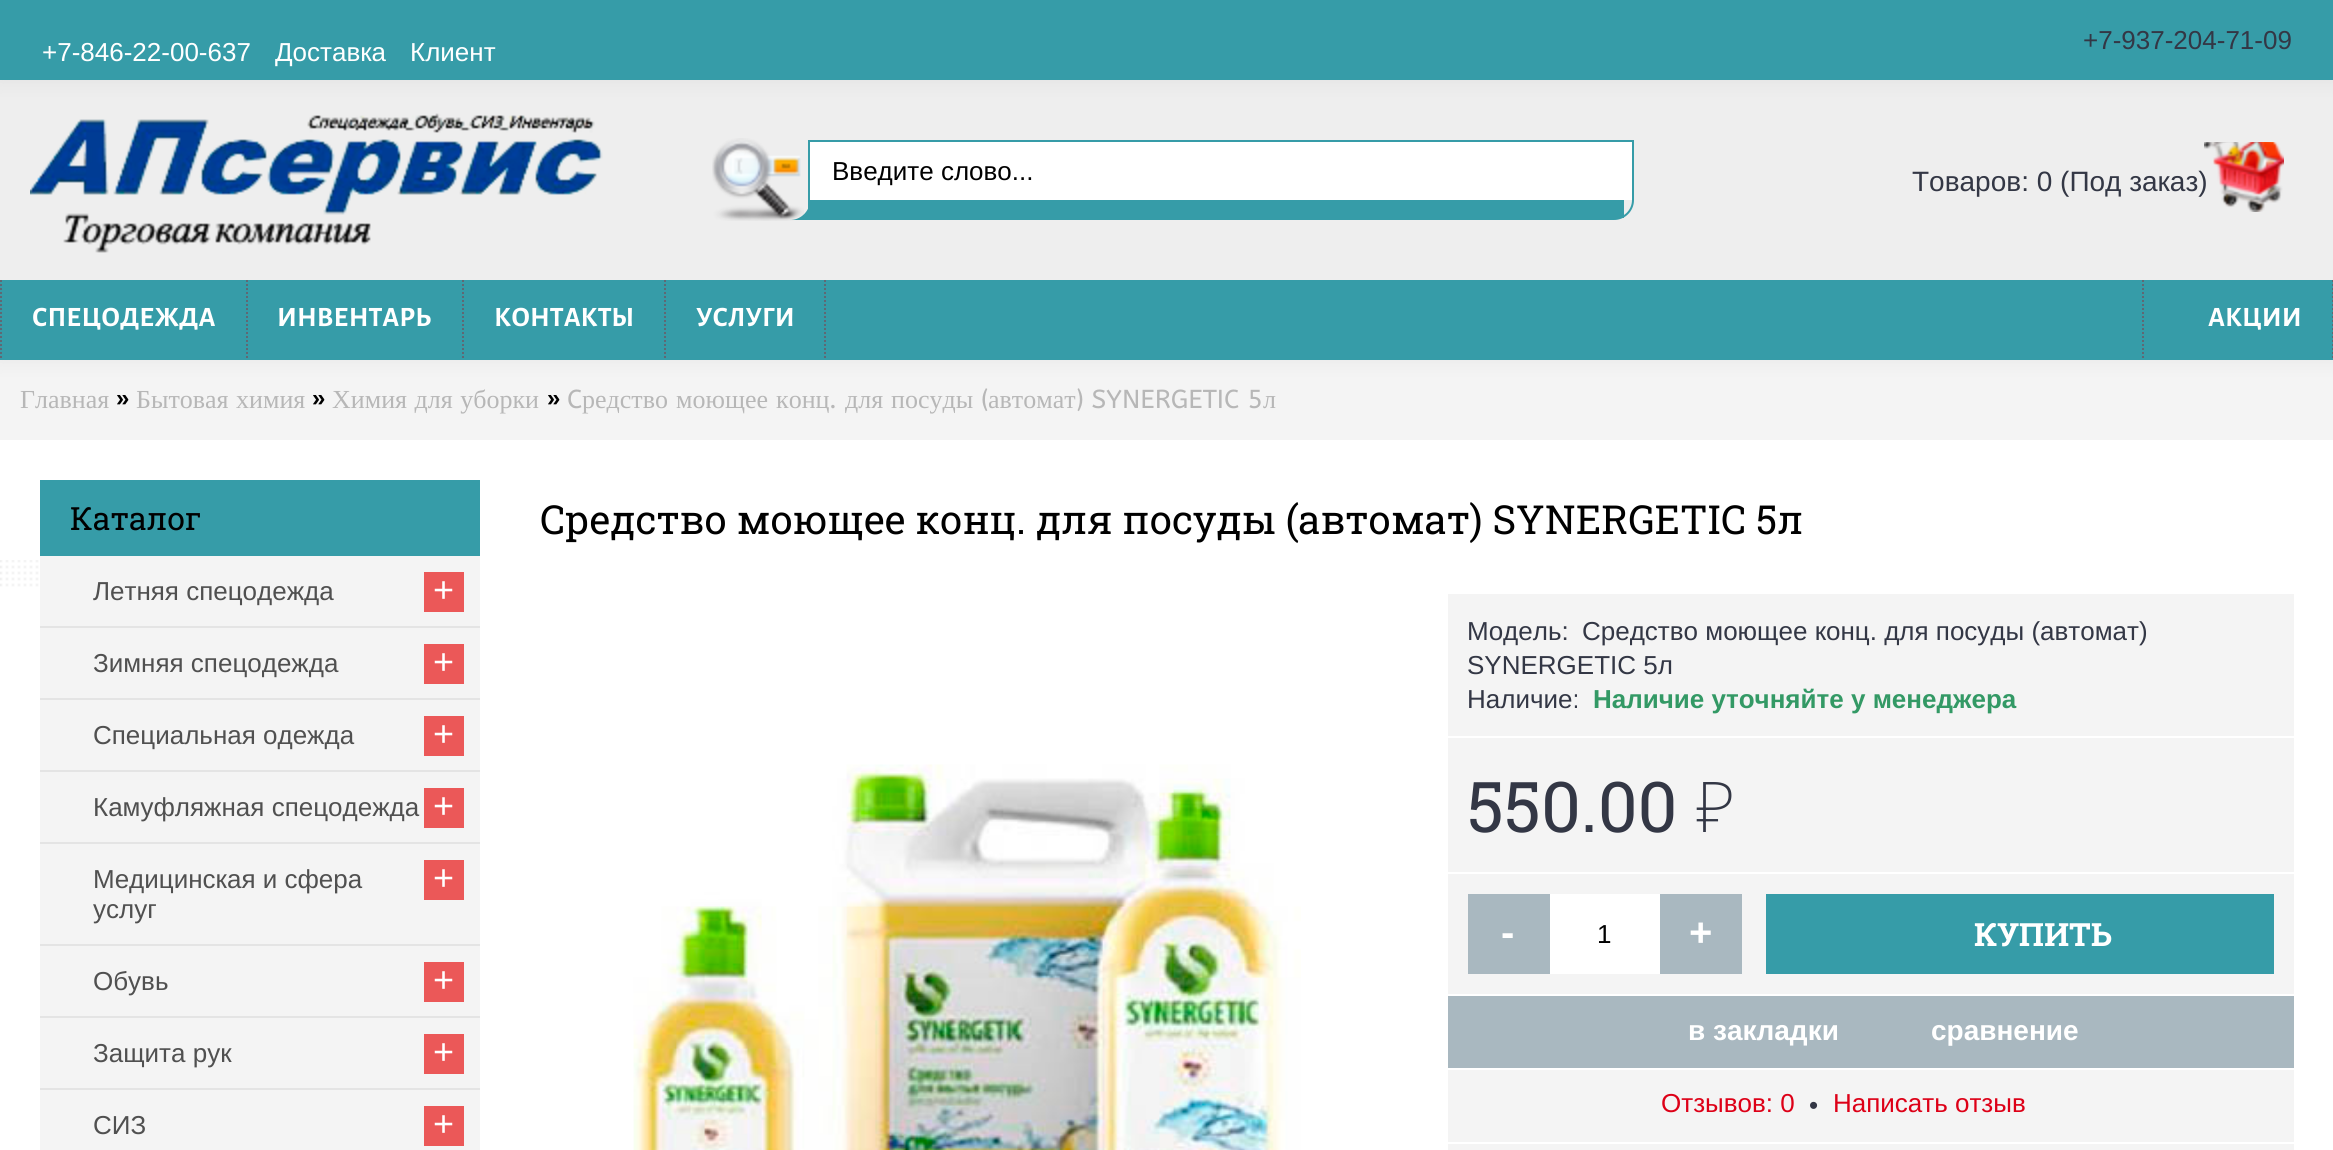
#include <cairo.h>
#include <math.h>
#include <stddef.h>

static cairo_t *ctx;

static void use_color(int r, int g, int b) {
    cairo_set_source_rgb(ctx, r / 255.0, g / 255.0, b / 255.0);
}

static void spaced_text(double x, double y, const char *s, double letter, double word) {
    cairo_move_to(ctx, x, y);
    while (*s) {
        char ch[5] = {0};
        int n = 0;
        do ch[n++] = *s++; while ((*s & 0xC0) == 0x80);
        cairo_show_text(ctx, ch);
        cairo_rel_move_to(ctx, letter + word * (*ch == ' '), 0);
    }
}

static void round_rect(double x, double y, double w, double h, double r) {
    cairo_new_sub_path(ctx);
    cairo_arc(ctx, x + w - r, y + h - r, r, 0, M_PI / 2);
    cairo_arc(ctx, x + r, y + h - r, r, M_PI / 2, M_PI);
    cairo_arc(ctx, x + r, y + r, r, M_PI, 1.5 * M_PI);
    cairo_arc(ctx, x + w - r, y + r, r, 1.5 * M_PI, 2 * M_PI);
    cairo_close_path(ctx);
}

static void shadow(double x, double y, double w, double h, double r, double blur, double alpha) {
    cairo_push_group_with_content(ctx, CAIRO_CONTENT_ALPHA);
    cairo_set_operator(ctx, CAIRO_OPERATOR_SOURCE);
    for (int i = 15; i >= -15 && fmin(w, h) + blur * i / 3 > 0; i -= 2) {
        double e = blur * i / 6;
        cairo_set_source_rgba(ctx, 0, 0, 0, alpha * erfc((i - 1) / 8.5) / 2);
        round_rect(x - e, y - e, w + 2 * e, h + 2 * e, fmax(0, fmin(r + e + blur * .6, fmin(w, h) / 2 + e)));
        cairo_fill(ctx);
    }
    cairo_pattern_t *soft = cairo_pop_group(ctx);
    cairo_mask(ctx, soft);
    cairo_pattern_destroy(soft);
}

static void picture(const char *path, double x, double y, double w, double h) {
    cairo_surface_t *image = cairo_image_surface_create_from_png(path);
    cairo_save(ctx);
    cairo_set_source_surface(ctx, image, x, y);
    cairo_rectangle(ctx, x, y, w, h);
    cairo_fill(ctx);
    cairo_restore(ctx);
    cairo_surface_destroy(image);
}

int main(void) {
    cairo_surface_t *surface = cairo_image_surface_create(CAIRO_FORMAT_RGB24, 2333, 1150);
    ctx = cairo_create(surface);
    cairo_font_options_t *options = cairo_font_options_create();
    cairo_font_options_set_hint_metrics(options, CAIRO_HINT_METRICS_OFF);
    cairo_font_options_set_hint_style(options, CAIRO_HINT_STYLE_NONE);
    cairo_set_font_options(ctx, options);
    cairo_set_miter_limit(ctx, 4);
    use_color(255, 255, 255);
    cairo_paint(ctx);
    use_color(244, 244, 244);
    cairo_rectangle(ctx, 0, 360, 2333, 80);
    cairo_fill(ctx);
    use_color(0, 0, 0);
    shadow(-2, -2, 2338, 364, 0, 10, 0.05);
    use_color(238, 238, 238);
    cairo_rectangle(ctx, 0, 80, 2333, 200);
    cairo_fill(ctx);
    use_color(0, 0, 0);
    shadow(-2, -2, 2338, 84, 0, 10, 0.05);
    use_color(54, 156, 168);
    cairo_rectangle(ctx, 0, 0, 2333, 80);
    cairo_fill(ctx);
    cairo_select_font_face(ctx, "Liberation Sans", CAIRO_FONT_SLANT_NORMAL, CAIRO_FONT_WEIGHT_NORMAL);
    cairo_set_font_size(ctx, 26);
    use_color(51, 55, 69);
    cairo_move_to(ctx, 2083, 49);
    cairo_show_text(ctx, "+7-937-204-71-09");
    use_color(255, 255, 255);
    cairo_move_to(ctx, 42, 61);
    cairo_show_text(ctx, "+7-846-22-00-637");
    cairo_move_to(ctx, 275, 61);
    cairo_show_text(ctx, "Доставка");
    cairo_move_to(ctx, 410, 61);
    cairo_show_text(ctx, "Клиент");
    picture("img1.png", 30, 113, 573, 140);
    cairo_new_path(ctx);
    cairo_move_to(ctx, 750, 142);
    cairo_line_to(ctx, 1632, 142);
    cairo_line_to(ctx, 1632, 200);
    cairo_line_to(ctx, 732, 200);
    cairo_line_to(ctx, 732, 160);
    cairo_curve_to(ctx, 732, 150, 740, 142, 750, 142);
    cairo_close_path(ctx);
    cairo_fill(ctx);
    cairo_new_path(ctx);
    cairo_move_to(ctx, 750, 141);
    cairo_line_to(ctx, 1633, 141);
    cairo_line_to(ctx, 1633, 200);
    cairo_curve_to(ctx, 1633, 210.5, 1624.5, 219, 1614, 219);
    cairo_line_to(ctx, 731, 219);
    cairo_line_to(ctx, 731, 160);
    cairo_curve_to(ctx, 731, 149.5, 739.5, 141, 750, 141);
    cairo_close_path(ctx);
    use_color(54, 156, 168);
    cairo_stroke(ctx);
    cairo_rectangle(ctx, 798, 200, 826, 18);
    cairo_fill(ctx);
    use_color(238, 238, 238);
    cairo_new_path(ctx);
    cairo_move_to(ctx, 730, 140);
    cairo_line_to(ctx, 810, 140);
    cairo_line_to(ctx, 810, 200);
    cairo_curve_to(ctx, 810, 211, 801, 220, 790, 220);
    cairo_line_to(ctx, 730, 220);
    cairo_close_path(ctx);
    cairo_fill(ctx);
    use_color(54, 156, 168);
    cairo_rectangle(ctx, 808, 140, 2, 70);
    cairo_fill(ctx);
    picture("img2.png", 712, 138, 92, 83);
    use_color(0, 0, 0);
    cairo_move_to(ctx, 832, 180);
    cairo_show_text(ctx, "Введите слово...");
    cairo_set_font_size(ctx, 28);
    use_color(51, 55, 69);
    cairo_move_to(ctx, 1912, 191);
    cairo_show_text(ctx, "Товаров: 0 (Под заказ)");
    picture("img3.png", 2204, 142, 80, 70);
    use_color(54, 156, 168);
    cairo_rectangle(ctx, 0, 280, 2333, 80);
    cairo_fill(ctx);
    cairo_new_path(ctx);
    cairo_move_to(ctx, 2333, 280);
    cairo_line_to(ctx, 2333, 360);
    use_color(95, 104, 116);
    cairo_set_dash(ctx, (double[]){2, 2}, 2, 0);
    cairo_stroke(ctx);
    cairo_new_path(ctx);
    cairo_move_to(ctx, 1, 280);
    cairo_line_to(ctx, 1, 360);
    cairo_stroke(ctx);
    cairo_new_path(ctx);
    cairo_move_to(ctx, 247, 280);
    cairo_line_to(ctx, 247, 360);
    cairo_stroke(ctx);
    cairo_select_font_face(ctx, "Alegreya Sans", CAIRO_FONT_SLANT_NORMAL, CAIRO_FONT_WEIGHT_BOLD);
    use_color(255, 255, 255);
    cairo_move_to(ctx, 32, 326);
    cairo_show_text(ctx, "СПЕЦОДЕЖДА");
    cairo_new_path(ctx);
    cairo_move_to(ctx, 463, 280);
    cairo_line_to(ctx, 463, 360);
    use_color(95, 104, 116);
    cairo_stroke(ctx);
    use_color(255, 255, 255);
    cairo_move_to(ctx, 277, 326);
    cairo_show_text(ctx, "ИНВЕНТАРЬ");
    cairo_new_path(ctx);
    cairo_move_to(ctx, 665, 280);
    cairo_line_to(ctx, 665, 360);
    use_color(95, 104, 116);
    cairo_stroke(ctx);
    use_color(255, 255, 255);
    cairo_move_to(ctx, 494, 326);
    cairo_show_text(ctx, "КОНТАКТЫ");
    cairo_new_path(ctx);
    cairo_move_to(ctx, 825, 280);
    cairo_line_to(ctx, 825, 360);
    use_color(95, 104, 116);
    cairo_stroke(ctx);
    use_color(255, 255, 255);
    cairo_move_to(ctx, 696, 326);
    cairo_show_text(ctx, "УСЛУГИ");
    cairo_new_path(ctx);
    cairo_move_to(ctx, 2143, 280);
    cairo_line_to(ctx, 2143, 360);
    use_color(95, 104, 116);
    cairo_stroke(ctx);
    use_color(255, 255, 255);
    cairo_move_to(ctx, 2208, 326);
    cairo_show_text(ctx, "АКЦИИ");
    picture("img4.png", 0, 560, 40, 27);
    cairo_select_font_face(ctx, "Liberation Serif", CAIRO_FONT_SLANT_NORMAL, CAIRO_FONT_WEIGHT_NORMAL);
    cairo_set_font_size(ctx, 26);
    use_color(183, 183, 183);
    cairo_move_to(ctx, 20, 408);
    cairo_show_text(ctx, "Главная");
    cairo_select_font_face(ctx, "Liberation Sans", CAIRO_FONT_SLANT_NORMAL, CAIRO_FONT_WEIGHT_BOLD);
    cairo_set_font_size(ctx, 24);
    use_color(0, 0, 0);
    cairo_move_to(ctx, 116, 406);
    cairo_show_text(ctx, "»");
    cairo_select_font_face(ctx, "Liberation Serif", CAIRO_FONT_SLANT_NORMAL, CAIRO_FONT_WEIGHT_NORMAL);
    cairo_set_font_size(ctx, 26);
    use_color(183, 183, 183);
    spaced_text(136, 408, "Бытовая химия", 0, 1);
    cairo_select_font_face(ctx, "Liberation Sans", CAIRO_FONT_SLANT_NORMAL, CAIRO_FONT_WEIGHT_BOLD);
    cairo_set_font_size(ctx, 24);
    use_color(0, 0, 0);
    cairo_move_to(ctx, 312, 406);
    cairo_show_text(ctx, "»");
    cairo_select_font_face(ctx, "Liberation Serif", CAIRO_FONT_SLANT_NORMAL, CAIRO_FONT_WEIGHT_NORMAL);
    cairo_set_font_size(ctx, 26);
    use_color(183, 183, 183);
    spaced_text(332, 408, "Химия для уборки", 0, 1);
    cairo_select_font_face(ctx, "Liberation Sans", CAIRO_FONT_SLANT_NORMAL, CAIRO_FONT_WEIGHT_BOLD);
    cairo_set_font_size(ctx, 24);
    use_color(0, 0, 0);
    cairo_move_to(ctx, 547, 406);
    cairo_show_text(ctx, "»");
    cairo_select_font_face(ctx, "ABeeZee", CAIRO_FONT_SLANT_NORMAL, CAIRO_FONT_WEIGHT_NORMAL);
    cairo_set_font_size(ctx, 26);
    use_color(183, 183, 183);
    cairo_move_to(ctx, 567, 408);
    cairo_show_text(ctx, "C");
    cairo_select_font_face(ctx, "Liberation Serif", CAIRO_FONT_SLANT_NORMAL, CAIRO_FONT_WEIGHT_NORMAL);
    cairo_move_to(ctx, 582, 408);
    cairo_show_text(ctx, "редство");
    cairo_move_to(ctx, 676, 408);
    cairo_show_text(ctx, "моющее");
    cairo_move_to(ctx, 776, 408);
    cairo_show_text(ctx, "конц");
    cairo_select_font_face(ctx, "ABeeZee", CAIRO_FONT_SLANT_NORMAL, CAIRO_FONT_WEIGHT_NORMAL);
    cairo_move_to(ctx, 829, 408);
    cairo_show_text(ctx, ".");
    cairo_select_font_face(ctx, "Liberation Serif", CAIRO_FONT_SLANT_NORMAL, CAIRO_FONT_WEIGHT_NORMAL);
    cairo_move_to(ctx, 845, 408);
    cairo_show_text(ctx, "для");
    cairo_move_to(ctx, 891, 408);
    cairo_show_text(ctx, "посуды");
    cairo_select_font_face(ctx, "ABeeZee", CAIRO_FONT_SLANT_NORMAL, CAIRO_FONT_WEIGHT_NORMAL);
    cairo_move_to(ctx, 981, 408);
    cairo_show_text(ctx, "(");
    cairo_select_font_face(ctx, "Liberation Serif", CAIRO_FONT_SLANT_NORMAL, CAIRO_FONT_WEIGHT_NORMAL);
    cairo_move_to(ctx, 988, 408);
    cairo_show_text(ctx, "автомат");
    cairo_select_font_face(ctx, "ABeeZee", CAIRO_FONT_SLANT_NORMAL, CAIRO_FONT_WEIGHT_NORMAL);
    cairo_move_to(ctx, 1076, 408);
    cairo_show_text(ctx, ") SYNERGETIC 5");
    cairo_select_font_face(ctx, "Liberation Serif", CAIRO_FONT_SLANT_NORMAL, CAIRO_FONT_WEIGHT_NORMAL);
    cairo_move_to(ctx, 1263, 408);
    cairo_show_text(ctx, "л");
    use_color(244, 244, 244);
    cairo_rectangle(ctx, 40, 556, 440, 594);
    cairo_fill(ctx);
    use_color(54, 156, 168);
    cairo_rectangle(ctx, 40, 480, 440, 76);
    cairo_fill(ctx);
    cairo_select_font_face(ctx, "Roboto Slab", CAIRO_FONT_SLANT_NORMAL, CAIRO_FONT_WEIGHT_NORMAL);
    cairo_set_font_size(ctx, 32);
    use_color(0, 0, 0);
    cairo_move_to(ctx, 70, 530);
    cairo_show_text(ctx, "Каталог");
    use_color(228, 228, 228);
    cairo_rectangle(ctx, 40, 626, 440, 2);
    cairo_fill(ctx);
    cairo_select_font_face(ctx, "Liberation Sans", CAIRO_FONT_SLANT_NORMAL, CAIRO_FONT_WEIGHT_NORMAL);
    cairo_set_font_size(ctx, 26);
    use_color(80, 80, 80);
    cairo_move_to(ctx, 93, 600);
    cairo_show_text(ctx, "Летняя спецодежда");
    use_color(235, 88, 88);
    cairo_rectangle(ctx, 424, 572, 40, 40);
    cairo_fill(ctx);
    cairo_set_font_size(ctx, 36);
    use_color(255, 255, 255);
    cairo_move_to(ctx, 433, 602);
    cairo_show_text(ctx, "+");
    use_color(228, 228, 228);
    cairo_rectangle(ctx, 40, 698, 440, 2);
    cairo_fill(ctx);
    cairo_set_font_size(ctx, 26);
    use_color(80, 80, 80);
    cairo_move_to(ctx, 93, 672);
    cairo_show_text(ctx, "Зимняя спецодежда");
    use_color(235, 88, 88);
    cairo_rectangle(ctx, 424, 644, 40, 40);
    cairo_fill(ctx);
    cairo_set_font_size(ctx, 36);
    use_color(255, 255, 255);
    cairo_move_to(ctx, 433, 674);
    cairo_show_text(ctx, "+");
    use_color(228, 228, 228);
    cairo_rectangle(ctx, 40, 770, 440, 2);
    cairo_fill(ctx);
    cairo_set_font_size(ctx, 26);
    use_color(80, 80, 80);
    cairo_move_to(ctx, 93, 744);
    cairo_show_text(ctx, "Специальная одежда");
    use_color(235, 88, 88);
    cairo_rectangle(ctx, 424, 716, 40, 40);
    cairo_fill(ctx);
    cairo_set_font_size(ctx, 36);
    use_color(255, 255, 255);
    cairo_move_to(ctx, 433, 746);
    cairo_show_text(ctx, "+");
    use_color(228, 228, 228);
    cairo_rectangle(ctx, 40, 842, 440, 2);
    cairo_fill(ctx);
    cairo_set_font_size(ctx, 26);
    use_color(80, 80, 80);
    cairo_move_to(ctx, 93, 816);
    cairo_show_text(ctx, "Камуфляжная спецодежда");
    use_color(235, 88, 88);
    cairo_rectangle(ctx, 424, 788, 40, 40);
    cairo_fill(ctx);
    cairo_set_font_size(ctx, 36);
    use_color(255, 255, 255);
    cairo_move_to(ctx, 433, 818);
    cairo_show_text(ctx, "+");
    use_color(228, 228, 228);
    cairo_rectangle(ctx, 40, 944, 440, 2);
    cairo_fill(ctx);
    cairo_set_font_size(ctx, 26);
    use_color(80, 80, 80);
    cairo_move_to(ctx, 93, 888);
    cairo_show_text(ctx, "Медицинская и сфера");
    use_color(235, 88, 88);
    cairo_rectangle(ctx, 424, 860, 40, 40);
    cairo_fill(ctx);
    cairo_set_font_size(ctx, 36);
    use_color(255, 255, 255);
    cairo_move_to(ctx, 433, 890);
    cairo_show_text(ctx, "+");
    cairo_set_font_size(ctx, 26);
    use_color(80, 80, 80);
    cairo_move_to(ctx, 93, 918);
    cairo_show_text(ctx, "услуг");
    use_color(228, 228, 228);
    cairo_rectangle(ctx, 40, 1016, 440, 2);
    cairo_fill(ctx);
    use_color(80, 80, 80);
    cairo_move_to(ctx, 93, 990);
    cairo_show_text(ctx, "Обувь");
    use_color(235, 88, 88);
    cairo_rectangle(ctx, 424, 962, 40, 40);
    cairo_fill(ctx);
    cairo_set_font_size(ctx, 36);
    use_color(255, 255, 255);
    cairo_move_to(ctx, 433, 992);
    cairo_show_text(ctx, "+");
    use_color(228, 228, 228);
    cairo_rectangle(ctx, 40, 1088, 440, 2);
    cairo_fill(ctx);
    cairo_set_font_size(ctx, 26);
    use_color(80, 80, 80);
    cairo_move_to(ctx, 93, 1062);
    cairo_show_text(ctx, "Защита рук");
    use_color(235, 88, 88);
    cairo_rectangle(ctx, 424, 1034, 40, 40);
    cairo_fill(ctx);
    cairo_set_font_size(ctx, 36);
    use_color(255, 255, 255);
    cairo_move_to(ctx, 433, 1064);
    cairo_show_text(ctx, "+");
    cairo_set_font_size(ctx, 26);
    use_color(80, 80, 80);
    cairo_move_to(ctx, 93, 1134);
    cairo_show_text(ctx, "СИЗ");
    use_color(235, 88, 88);
    cairo_rectangle(ctx, 424, 1106, 40, 40);
    cairo_fill(ctx);
    cairo_set_font_size(ctx, 36);
    use_color(255, 255, 255);
    cairo_move_to(ctx, 433, 1136);
    cairo_show_text(ctx, "+");
    cairo_select_font_face(ctx, "Roboto Slab", CAIRO_FONT_SLANT_NORMAL, CAIRO_FONT_WEIGHT_NORMAL);
    cairo_set_font_size(ctx, 40);
    use_color(0, 0, 0);
    cairo_move_to(ctx, 540, 534);
    cairo_show_text(ctx, "Cредство моющее конц. для посуды (автомат) SYNERGETIC 5л");
    picture("img5.png", 633, 764, 668, 386);
    use_color(244, 244, 244);
    cairo_rectangle(ctx, 1448, 594, 846, 142);
    cairo_fill(ctx);
    cairo_select_font_face(ctx, "Liberation Sans", CAIRO_FONT_SLANT_NORMAL, CAIRO_FONT_WEIGHT_NORMAL);
    cairo_set_font_size(ctx, 26);
    use_color(51, 55, 69);
    cairo_move_to(ctx, 1467, 640);
    cairo_show_text(ctx, "Модель:");
    cairo_move_to(ctx, 1582, 640);
    cairo_show_text(ctx, "Cредство моющее конц. для посуды (автомат)");
    cairo_move_to(ctx, 1467, 674);
    cairo_show_text(ctx, "SYNERGETIC 5л");
    cairo_move_to(ctx, 1467, 708);
    cairo_show_text(ctx, "Наличие:");
    cairo_select_font_face(ctx, "Liberation Sans", CAIRO_FONT_SLANT_NORMAL, CAIRO_FONT_WEIGHT_BOLD);
    use_color(51, 153, 101);
    cairo_move_to(ctx, 1593, 708);
    cairo_show_text(ctx, "Наличие уточняйте у менеджера");
    use_color(244, 244, 244);
    cairo_rectangle(ctx, 1448, 738, 846, 134);
    cairo_fill(ctx);
    cairo_select_font_face(ctx, "Roboto Slab", CAIRO_FONT_SLANT_NORMAL, CAIRO_FONT_WEIGHT_NORMAL);
    cairo_set_font_size(ctx, 70);
    use_color(51, 55, 69);
    cairo_move_to(ctx, 1467, 832);
    cairo_show_text(ctx, "550.00");
    cairo_select_font_face(ctx, "Noto Sans ExtraLight", CAIRO_FONT_SLANT_NORMAL, CAIRO_FONT_WEIGHT_NORMAL);
    cairo_move_to(ctx, 1696, 832);
    cairo_show_text(ctx, "₽");
    use_color(244, 244, 244);
    cairo_rectangle(ctx, 1448, 874, 846, 120);
    cairo_fill(ctx);
    use_color(169, 184, 192);
    cairo_rectangle(ctx, 1468, 894, 82, 80);
    cairo_fill(ctx);
    cairo_select_font_face(ctx, "Liberation Sans", CAIRO_FONT_SLANT_NORMAL, CAIRO_FONT_WEIGHT_BOLD);
    cairo_set_font_size(ctx, 40);
    use_color(255, 255, 255);
    cairo_move_to(ctx, 1501, 946);
    cairo_show_text(ctx, "-");
    cairo_rectangle(ctx, 1550, 894, 110, 80);
    cairo_fill(ctx);
    cairo_select_font_face(ctx, "Liberation Sans", CAIRO_FONT_SLANT_NORMAL, CAIRO_FONT_WEIGHT_NORMAL);
    cairo_set_font_size(ctx, 26);
    use_color(0, 0, 0);
    cairo_move_to(ctx, 1597, 943);
    cairo_show_text(ctx, "1");
    use_color(169, 184, 192);
    cairo_rectangle(ctx, 1660, 894, 82, 80);
    cairo_fill(ctx);
    cairo_select_font_face(ctx, "Liberation Sans", CAIRO_FONT_SLANT_NORMAL, CAIRO_FONT_WEIGHT_BOLD);
    cairo_set_font_size(ctx, 40);
    use_color(255, 255, 255);
    cairo_move_to(ctx, 1689, 946);
    cairo_show_text(ctx, "+");
    use_color(54, 156, 168);
    cairo_rectangle(ctx, 1766, 894, 508, 80);
    cairo_fill(ctx);
    cairo_select_font_face(ctx, "Roboto Slab", CAIRO_FONT_SLANT_NORMAL, CAIRO_FONT_WEIGHT_BOLD);
    cairo_set_font_size(ctx, 32);
    use_color(255, 255, 255);
    cairo_move_to(ctx, 1974, 946);
    cairo_show_text(ctx, "КУПИТЬ");
    use_color(169, 184, 192);
    cairo_rectangle(ctx, 1448, 996, 846, 72);
    cairo_fill(ctx);
    cairo_select_font_face(ctx, "Liberation Sans", CAIRO_FONT_SLANT_NORMAL, CAIRO_FONT_WEIGHT_BOLD);
    cairo_set_font_size(ctx, 28);
    use_color(255, 255, 255);
    cairo_move_to(ctx, 1688, 1040);
    cairo_show_text(ctx, "в закладки");
    cairo_move_to(ctx, 1931, 1040);
    cairo_show_text(ctx, "сравнение");
    use_color(244, 244, 244);
    cairo_rectangle(ctx, 1448, 1070, 846, 72);
    cairo_fill(ctx);
    cairo_select_font_face(ctx, "Liberation Sans", CAIRO_FONT_SLANT_NORMAL, CAIRO_FONT_WEIGHT_NORMAL);
    cairo_set_font_size(ctx, 26);
    use_color(221, 0, 23);
    cairo_move_to(ctx, 1661, 1112);
    cairo_show_text(ctx, "Отзывов: 0");
    use_color(51, 55, 69);
    cairo_move_to(ctx, 1809, 1114);
    cairo_show_text(ctx, "•");
    use_color(221, 0, 23);
    cairo_move_to(ctx, 1833, 1112);
    cairo_show_text(ctx, "Написать отзыв");
    use_color(244, 244, 244);
    cairo_rectangle(ctx, 1448, 1144, 846, 6);
    cairo_fill(ctx);
    cairo_surface_write_to_png(surface, "result.png");
    cairo_font_options_destroy(options);
    cairo_destroy(ctx);
    cairo_surface_destroy(surface);
    return 0;
}
